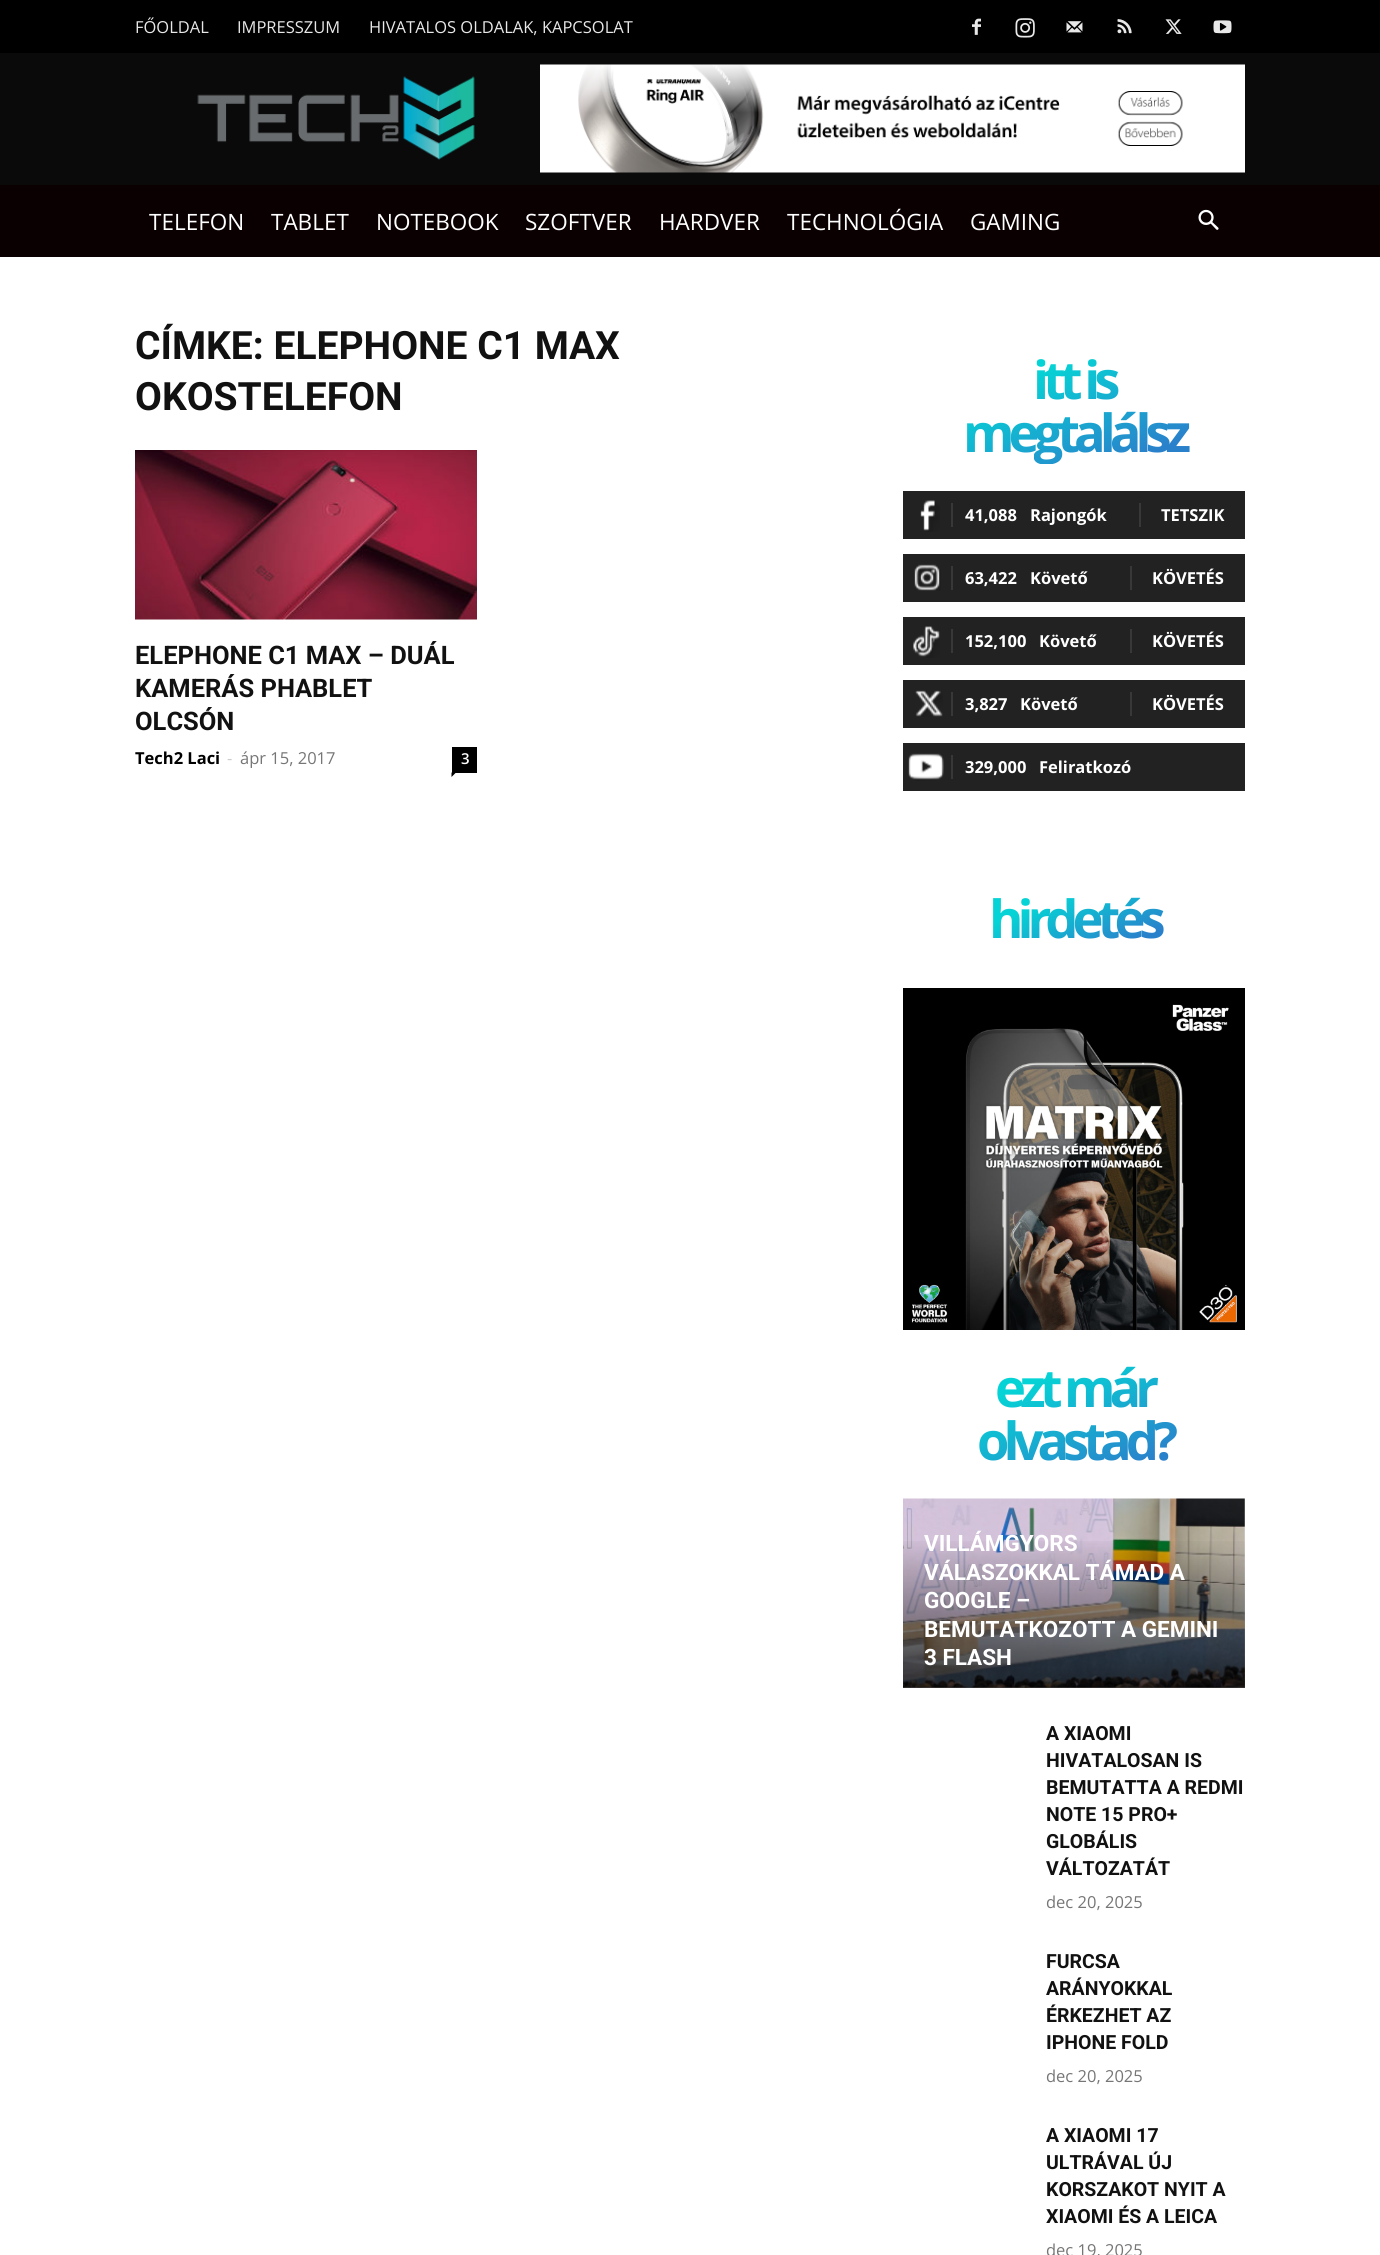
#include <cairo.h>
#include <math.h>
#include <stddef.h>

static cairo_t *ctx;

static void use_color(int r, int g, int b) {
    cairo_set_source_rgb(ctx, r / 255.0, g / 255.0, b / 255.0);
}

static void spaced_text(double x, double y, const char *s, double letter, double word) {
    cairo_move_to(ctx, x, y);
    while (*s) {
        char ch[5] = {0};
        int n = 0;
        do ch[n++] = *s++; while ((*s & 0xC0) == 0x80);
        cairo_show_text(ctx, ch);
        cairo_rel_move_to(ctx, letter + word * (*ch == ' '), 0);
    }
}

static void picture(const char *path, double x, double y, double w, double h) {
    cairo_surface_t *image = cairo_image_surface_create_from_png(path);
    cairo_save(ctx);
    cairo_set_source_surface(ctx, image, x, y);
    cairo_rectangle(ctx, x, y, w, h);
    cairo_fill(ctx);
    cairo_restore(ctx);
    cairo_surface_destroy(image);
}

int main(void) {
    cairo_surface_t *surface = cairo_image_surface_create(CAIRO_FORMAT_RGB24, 1380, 2255);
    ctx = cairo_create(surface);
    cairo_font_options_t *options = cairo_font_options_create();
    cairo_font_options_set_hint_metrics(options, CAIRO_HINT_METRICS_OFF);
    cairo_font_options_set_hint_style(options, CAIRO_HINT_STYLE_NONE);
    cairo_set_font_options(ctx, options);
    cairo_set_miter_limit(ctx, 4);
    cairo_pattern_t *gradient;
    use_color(255, 255, 255);
    cairo_paint(ctx);
    use_color(0, 0, 0);
    cairo_rectangle(ctx, 0, 0, 1380, 53);
    cairo_fill(ctx);
    cairo_select_font_face(ctx, "Open Sans", CAIRO_FONT_SLANT_NORMAL, CAIRO_FONT_WEIGHT_NORMAL);
    cairo_set_font_size(ctx, 16.5);
    use_color(232, 232, 232);
    cairo_move_to(ctx, 135, 33);
    cairo_show_text(ctx, "FŐOLDAL");
    cairo_move_to(ctx, 237, 33);
    cairo_show_text(ctx, "IMPRESSZUM");
    cairo_move_to(ctx, 369, 33);
    cairo_show_text(ctx, "HIVATALOS OLDALAK, KAPCSOLAT");
    picture("img1.png", 972, 18, 9, 17);
    picture("img2.png", 1015, 18, 20, 20);
    picture("img3.png", 1066, 21, 17, 12);
    picture("img4.png", 1117, 19, 15, 15);
    picture("img5.png", 1165, 19, 17, 15);
    picture("img6.png", 1213, 20, 19, 14);
    use_color(10, 10, 10);
    cairo_rectangle(ctx, 0, 53, 1380, 132);
    cairo_fill(ctx);
    picture("img7.png", 197, 76, 278, 84);
    picture("img8.png", 540, 64, 705, 109);
    use_color(10, 0, 2);
    cairo_rectangle(ctx, 0, 185, 1380, 72);
    cairo_fill(ctx);
    cairo_set_font_size(ctx, 22.5);
    use_color(255, 255, 255);
    cairo_move_to(ctx, 149, 230);
    cairo_show_text(ctx, "TELEFON");
    cairo_move_to(ctx, 271, 230);
    cairo_show_text(ctx, "TABLET");
    cairo_move_to(ctx, 376, 230);
    cairo_show_text(ctx, "NOTEBOOK");
    cairo_move_to(ctx, 525, 230);
    cairo_show_text(ctx, "SZOFTVER");
    cairo_move_to(ctx, 659, 230);
    cairo_show_text(ctx, "HARDVER");
    cairo_move_to(ctx, 787, 230);
    cairo_show_text(ctx, "TECHNOLÓGIA");
    cairo_move_to(ctx, 970, 230);
    cairo_show_text(ctx, "GAMING");
    picture("img9.png", 1198, 209, 21, 21);
    cairo_select_font_face(ctx, "Roboto", CAIRO_FONT_SLANT_NORMAL, CAIRO_FONT_WEIGHT_BOLD);
    cairo_set_font_size(ctx, 39);
    use_color(17, 17, 17);
    cairo_move_to(ctx, 135, 359);
    cairo_show_text(ctx, "CÍMKE: ELEPHONE C1 MAX");
    cairo_move_to(ctx, 135, 410);
    cairo_show_text(ctx, "OKOSTELEFON");
    picture("img10.png", 135, 450, 342, 170);
    cairo_set_font_size(ctx, 25.5);
    cairo_move_to(ctx, 135, 664);
    cairo_show_text(ctx, "ELEPHONE C1 MAX – DUÁL");
    cairo_move_to(ctx, 135, 697);
    cairo_show_text(ctx, "KAMERÁS PHABLET");
    cairo_move_to(ctx, 135, 730);
    cairo_show_text(ctx, "OLCSÓN");
    cairo_select_font_face(ctx, "Open Sans", CAIRO_FONT_SLANT_NORMAL, CAIRO_FONT_WEIGHT_BOLD);
    cairo_set_font_size(ctx, 16.5);
    use_color(0, 0, 0);
    cairo_move_to(ctx, 135, 764);
    cairo_show_text(ctx, "Tech2 Laci");
    cairo_select_font_face(ctx, "Open Sans", CAIRO_FONT_SLANT_NORMAL, CAIRO_FONT_WEIGHT_NORMAL);
    use_color(204, 204, 204);
    cairo_move_to(ctx, 227, 764);
    cairo_show_text(ctx, "-");
    use_color(118, 118, 118);
    cairo_move_to(ctx, 240, 764);
    cairo_show_text(ctx, "ápr 15, 2017");
    use_color(0, 0, 0);
    cairo_rectangle(ctx, 452, 747, 25, 26);
    cairo_fill(ctx);
    cairo_select_font_face(ctx, "Open Sans SemiBold", CAIRO_FONT_SLANT_NORMAL, CAIRO_FONT_WEIGHT_NORMAL);
    cairo_set_font_size(ctx, 15);
    use_color(255, 255, 255);
    cairo_move_to(ctx, 461, 764);
    cairo_show_text(ctx, "3");
    use_color(0, 0, 0);
    cairo_new_path(ctx);
    cairo_move_to(ctx, 451.5, 772.5);
    cairo_line_to(ctx, 456, 772.5);
    cairo_line_to(ctx, 451.5, 777);
    cairo_close_path(ctx);
    cairo_fill(ctx);
    cairo_select_font_face(ctx, "Open Sans", CAIRO_FONT_SLANT_NORMAL, CAIRO_FONT_WEIGHT_BOLD);
    cairo_set_font_size(ctx, 52.5);
    gradient = cairo_pattern_create_linear(1025, 298, 1123, 518);
    cairo_pattern_add_color_stop_rgba(gradient, 0.3, 0.024, 0.827, 0.835, 1);
    cairo_pattern_add_color_stop_rgba(gradient, 0.8, 0.165, 0.506, 0.796, 1);
    cairo_set_source(ctx, gradient);
    cairo_pattern_destroy(gradient);
    spaced_text(1033, 399, "itt is", -6, 0);
    cairo_save(ctx);
    cairo_rectangle(ctx, 903, 353, 342, 111);
    cairo_clip(ctx);
    spaced_text(963, 452, "megtalálsz", -6, 0);
    cairo_restore(ctx);
    use_color(34, 34, 34);
    cairo_rectangle(ctx, 903, 491, 342, 48);
    cairo_fill(ctx);
    picture("img11.png", 920, 500, 20, 32);
    use_color(56, 56, 56);
    cairo_rectangle(ctx, 951, 503, 2, 24);
    cairo_fill(ctx);
    cairo_set_font_size(ctx, 16.5);
    use_color(255, 255, 255);
    cairo_move_to(ctx, 965, 521);
    cairo_show_text(ctx, "41,088");
    cairo_move_to(ctx, 1030, 521);
    cairo_show_text(ctx, "Rajongók");
    use_color(56, 56, 56);
    cairo_rectangle(ctx, 1139, 503, 2, 24);
    cairo_fill(ctx);
    use_color(255, 255, 255);
    cairo_move_to(ctx, 1161, 521);
    cairo_show_text(ctx, "TETSZIK");
    use_color(34, 34, 34);
    cairo_rectangle(ctx, 903, 554, 342, 48);
    cairo_fill(ctx);
    picture("img12.png", 914, 564, 27, 27);
    use_color(56, 56, 56);
    cairo_rectangle(ctx, 951, 566, 2, 24);
    cairo_fill(ctx);
    use_color(255, 255, 255);
    cairo_move_to(ctx, 965, 584);
    cairo_show_text(ctx, "63,422");
    cairo_move_to(ctx, 1030, 584);
    cairo_show_text(ctx, "Követő");
    use_color(56, 56, 56);
    cairo_rectangle(ctx, 1130, 566, 2, 24);
    cairo_fill(ctx);
    use_color(255, 255, 255);
    cairo_move_to(ctx, 1152, 584);
    cairo_show_text(ctx, "KÖVETÉS");
    use_color(34, 34, 34);
    cairo_rectangle(ctx, 903, 617, 342, 48);
    cairo_fill(ctx);
    picture("img13.png", 913, 626, 27, 32);
    use_color(56, 56, 56);
    cairo_rectangle(ctx, 951, 629, 2, 24);
    cairo_fill(ctx);
    use_color(255, 255, 255);
    cairo_move_to(ctx, 965, 647);
    cairo_show_text(ctx, "152,100");
    cairo_move_to(ctx, 1039, 647);
    cairo_show_text(ctx, "Követő");
    use_color(56, 56, 56);
    cairo_rectangle(ctx, 1130, 629, 2, 24);
    cairo_fill(ctx);
    use_color(255, 255, 255);
    cairo_move_to(ctx, 1152, 647);
    cairo_show_text(ctx, "KÖVETÉS");
    use_color(34, 34, 34);
    cairo_rectangle(ctx, 903, 680, 342, 48);
    cairo_fill(ctx);
    picture("img14.png", 915, 690, 28, 27);
    use_color(56, 56, 56);
    cairo_rectangle(ctx, 951, 692, 2, 24);
    cairo_fill(ctx);
    use_color(255, 255, 255);
    cairo_move_to(ctx, 965, 710);
    cairo_show_text(ctx, "3,827");
    cairo_move_to(ctx, 1020, 710);
    cairo_show_text(ctx, "Követő");
    use_color(56, 56, 56);
    cairo_rectangle(ctx, 1130, 692, 2, 24);
    cairo_fill(ctx);
    use_color(255, 255, 255);
    cairo_move_to(ctx, 1152, 710);
    cairo_show_text(ctx, "KÖVETÉS");
    use_color(34, 34, 34);
    cairo_rectangle(ctx, 903, 743, 342, 48);
    cairo_fill(ctx);
    picture("img15.png", 908, 753, 36, 28);
    use_color(56, 56, 56);
    cairo_rectangle(ctx, 951, 755, 2, 24);
    cairo_fill(ctx);
    use_color(255, 255, 255);
    cairo_move_to(ctx, 965, 773);
    cairo_show_text(ctx, "329,000");
    cairo_move_to(ctx, 1039, 773);
    cairo_show_text(ctx, "Feliratkozó");
    cairo_set_font_size(ctx, 52.5);
    gradient = cairo_pattern_create_linear(1044, 853, 1104, 987);
    cairo_pattern_add_color_stop_rgba(gradient, 0.3, 0.024, 0.827, 0.835, 1);
    cairo_pattern_add_color_stop_rgba(gradient, 0.8, 0.165, 0.506, 0.796, 1);
    cairo_set_source(ctx, gradient);
    cairo_pattern_destroy(gradient);
    spaced_text(989, 938, "hirdetés", -6, 0);
    picture("img16.png", 903, 988, 342, 342);
    gradient = cairo_pattern_create_linear(1025, 1306, 1123, 1526);
    cairo_pattern_add_color_stop_rgba(gradient, 0.3, 0.024, 0.827, 0.835, 1);
    cairo_pattern_add_color_stop_rgba(gradient, 0.8, 0.165, 0.506, 0.796, 1);
    cairo_set_source(ctx, gradient);
    cairo_pattern_destroy(gradient);
    spaced_text(995, 1407, "ezt már", -6, 0);
    spaced_text(977, 1460, "olvastad?", -6, 0);
    picture("img17.png", 903, 1498, 342, 190);
    gradient = cairo_pattern_create_linear(1074, 1536, 1074, 1688);
    cairo_pattern_add_color_stop_rgba(gradient, 0, 0, 0, 0, 0);
    cairo_pattern_add_color_stop_rgba(gradient, 1, 0, 0, 0, 0.7);
    cairo_set_source(ctx, gradient);
    cairo_pattern_destroy(gradient);
    cairo_rectangle(ctx, 903, 1541, 342, 147);
    cairo_fill(ctx);
    cairo_select_font_face(ctx, "Roboto", CAIRO_FONT_SLANT_NORMAL, CAIRO_FONT_WEIGHT_BOLD);
    cairo_set_font_size(ctx, 22.5);
    use_color(255, 255, 255);
    cairo_move_to(ctx, 924, 1551);
    cairo_show_text(ctx, "VILLÁMGYORS");
    cairo_move_to(ctx, 924, 1580);
    cairo_show_text(ctx, "VÁLASZOKKAL TÁMAD A");
    cairo_move_to(ctx, 924, 1608);
    cairo_show_text(ctx, "GOOGLE –");
    cairo_move_to(ctx, 924, 1637);
    cairo_show_text(ctx, "BEMUTATKOZOTT A GEMINI");
    cairo_move_to(ctx, 924, 1665);
    cairo_show_text(ctx, "3 FLASH");
    cairo_set_font_size(ctx, 19.5);
    use_color(17, 17, 17);
    cairo_move_to(ctx, 1046, 1740);
    cairo_show_text(ctx, "A XIAOMI");
    cairo_move_to(ctx, 1046, 1767);
    cairo_show_text(ctx, "HIVATALOSAN IS");
    cairo_move_to(ctx, 1046, 1794);
    cairo_show_text(ctx, "BEMUTATTA A REDMI");
    cairo_move_to(ctx, 1046, 1821);
    cairo_show_text(ctx, "NOTE 15 PRO+");
    cairo_move_to(ctx, 1046, 1848);
    cairo_show_text(ctx, "GLOBÁLIS");
    cairo_move_to(ctx, 1046, 1875);
    cairo_show_text(ctx, "VÁLTOZATÁT");
    cairo_select_font_face(ctx, "Open Sans", CAIRO_FONT_SLANT_NORMAL, CAIRO_FONT_WEIGHT_NORMAL);
    cairo_set_font_size(ctx, 16.5);
    use_color(118, 118, 118);
    cairo_move_to(ctx, 1046, 1908);
    cairo_show_text(ctx, "dec 20, 2025");
    cairo_select_font_face(ctx, "Roboto", CAIRO_FONT_SLANT_NORMAL, CAIRO_FONT_WEIGHT_BOLD);
    cairo_set_font_size(ctx, 19.5);
    use_color(17, 17, 17);
    cairo_move_to(ctx, 1046, 1968);
    cairo_show_text(ctx, "FURCSA");
    cairo_move_to(ctx, 1046, 1995);
    cairo_show_text(ctx, "ARÁNYOKKAL");
    cairo_move_to(ctx, 1046, 2022);
    cairo_show_text(ctx, "ÉRKEZHET AZ");
    cairo_move_to(ctx, 1046, 2049);
    cairo_show_text(ctx, "IPHONE FOLD");
    cairo_select_font_face(ctx, "Open Sans", CAIRO_FONT_SLANT_NORMAL, CAIRO_FONT_WEIGHT_NORMAL);
    cairo_set_font_size(ctx, 16.5);
    use_color(118, 118, 118);
    cairo_move_to(ctx, 1046, 2082);
    cairo_show_text(ctx, "dec 20, 2025");
    cairo_select_font_face(ctx, "Roboto", CAIRO_FONT_SLANT_NORMAL, CAIRO_FONT_WEIGHT_BOLD);
    cairo_set_font_size(ctx, 19.5);
    use_color(17, 17, 17);
    cairo_move_to(ctx, 1046, 2142);
    cairo_show_text(ctx, "A XIAOMI 17");
    cairo_move_to(ctx, 1046, 2169);
    cairo_show_text(ctx, "ULTRÁVAL ÚJ");
    cairo_move_to(ctx, 1046, 2196);
    cairo_show_text(ctx, "KORSZAKOT NYIT A");
    cairo_move_to(ctx, 1046, 2223);
    cairo_show_text(ctx, "XIAOMI ÉS A LEICA");
    cairo_select_font_face(ctx, "Open Sans", CAIRO_FONT_SLANT_NORMAL, CAIRO_FONT_WEIGHT_NORMAL);
    cairo_set_font_size(ctx, 16.5);
    use_color(118, 118, 118);
    cairo_move_to(ctx, 1046, 2256);
    cairo_show_text(ctx, "dec 19, 2025");
    cairo_surface_write_to_png(surface, "result.png");
    cairo_font_options_destroy(options);
    cairo_destroy(ctx);
    cairo_surface_destroy(surface);
    return 0;
}
